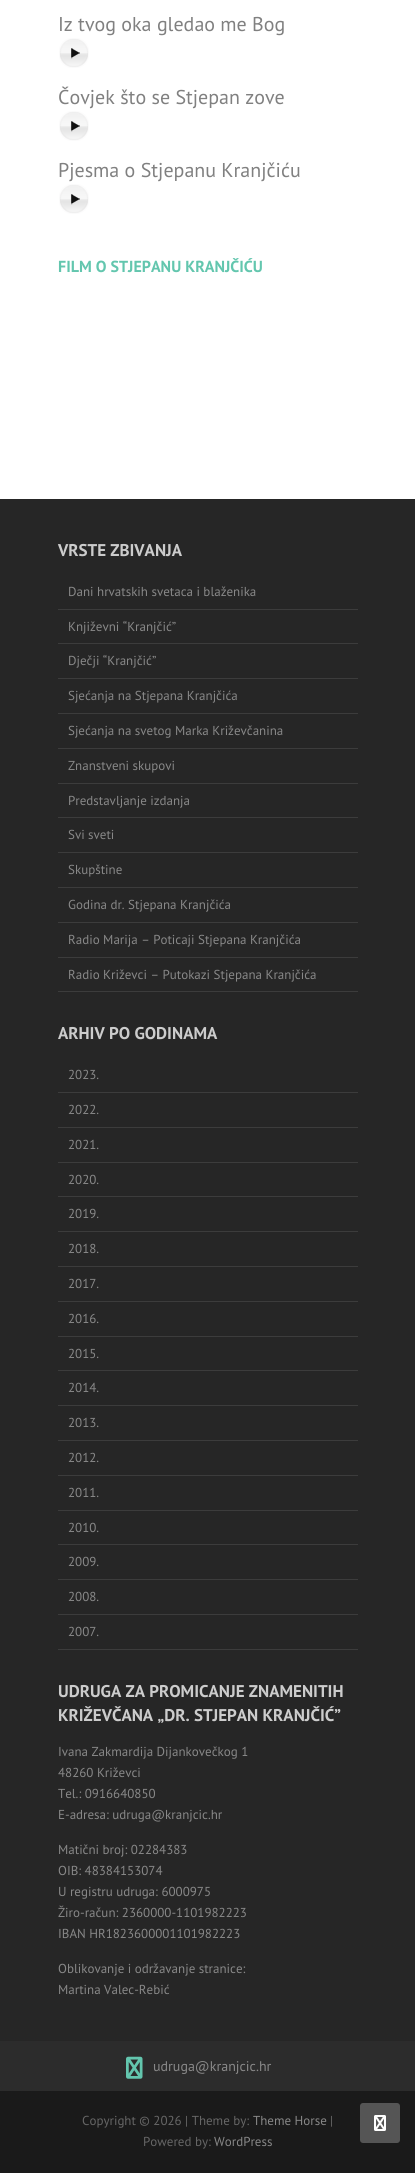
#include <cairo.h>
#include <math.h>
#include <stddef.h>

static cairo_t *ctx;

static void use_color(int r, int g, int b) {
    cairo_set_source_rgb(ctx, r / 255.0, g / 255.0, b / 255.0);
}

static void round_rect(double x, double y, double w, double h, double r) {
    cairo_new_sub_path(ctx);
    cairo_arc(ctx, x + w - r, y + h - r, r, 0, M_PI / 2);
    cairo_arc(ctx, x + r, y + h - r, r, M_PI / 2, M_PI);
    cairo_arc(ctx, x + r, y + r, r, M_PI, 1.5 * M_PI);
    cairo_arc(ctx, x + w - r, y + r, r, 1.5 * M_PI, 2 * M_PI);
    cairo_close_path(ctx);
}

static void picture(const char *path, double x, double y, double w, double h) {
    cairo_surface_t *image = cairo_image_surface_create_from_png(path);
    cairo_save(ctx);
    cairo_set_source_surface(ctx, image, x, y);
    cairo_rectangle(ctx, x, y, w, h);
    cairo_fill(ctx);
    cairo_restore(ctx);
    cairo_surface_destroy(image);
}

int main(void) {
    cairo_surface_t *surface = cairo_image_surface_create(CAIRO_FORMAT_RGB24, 415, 2173);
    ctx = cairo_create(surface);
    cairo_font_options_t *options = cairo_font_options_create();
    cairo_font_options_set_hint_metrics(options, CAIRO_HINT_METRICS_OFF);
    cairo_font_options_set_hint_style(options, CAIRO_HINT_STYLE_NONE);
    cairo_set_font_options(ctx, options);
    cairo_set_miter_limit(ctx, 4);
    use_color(255, 255, 255);
    cairo_paint(ctx);
    cairo_select_font_face(ctx, "PT Sans", CAIRO_FONT_SLANT_NORMAL, CAIRO_FONT_WEIGHT_NORMAL);
    cairo_set_font_size(ctx, 20);
    use_color(128, 128, 128);
    cairo_move_to(ctx, 58, 31);
    cairo_show_text(ctx, "Iz tvog oka gledao me Bog");
    picture("img1.png", 59, 38, 30, 30);
    cairo_move_to(ctx, 58, 104);
    cairo_show_text(ctx, "Čovjek što se Stjepan zove");
    picture("img1.png", 59, 111, 30, 30);
    cairo_move_to(ctx, 58, 177);
    cairo_show_text(ctx, "Pjesma o Stjepanu Kranjčiću");
    picture("img1.png", 59, 184, 30, 30);
    cairo_select_font_face(ctx, "PT Sans", CAIRO_FONT_SLANT_NORMAL, CAIRO_FONT_WEIGHT_BOLD);
    cairo_set_font_size(ctx, 16);
    use_color(99, 198, 174);
    cairo_move_to(ctx, 58, 272);
    cairo_show_text(ctx, "FILM O STJEPANU KRANJČIĆU");
    use_color(38, 38, 38);
    cairo_rectangle(ctx, 0, 499, 415, 1542);
    cairo_fill(ctx);
    cairo_set_font_size(ctx, 17);
    use_color(204, 204, 204);
    cairo_move_to(ctx, 58, 556);
    cairo_show_text(ctx, "VRSTE ZBIVANJA");
    use_color(60, 60, 60);
    cairo_rectangle(ctx, 58, 609, 300, 1);
    cairo_fill(ctx);
    cairo_select_font_face(ctx, "PT Sans", CAIRO_FONT_SLANT_NORMAL, CAIRO_FONT_WEIGHT_NORMAL);
    cairo_set_font_size(ctx, 13);
    use_color(136, 136, 136);
    cairo_move_to(ctx, 68, 596);
    cairo_show_text(ctx, "Dani hrvatskih svetaca i blaženika");
    use_color(60, 60, 60);
    cairo_rectangle(ctx, 58, 643, 300, 1);
    cairo_fill(ctx);
    use_color(136, 136, 136);
    cairo_move_to(ctx, 68, 631);
    cairo_show_text(ctx, "Književni “Kranjčić”");
    use_color(60, 60, 60);
    cairo_rectangle(ctx, 58, 678, 300, 1);
    cairo_fill(ctx);
    use_color(136, 136, 136);
    cairo_move_to(ctx, 68, 665);
    cairo_show_text(ctx, "Dječji “Kranjčić”");
    use_color(60, 60, 60);
    cairo_rectangle(ctx, 58, 713, 300, 1);
    cairo_fill(ctx);
    use_color(136, 136, 136);
    cairo_move_to(ctx, 68, 700);
    cairo_show_text(ctx, "Sjećanja na Stjepana Kranjčića");
    use_color(60, 60, 60);
    cairo_rectangle(ctx, 58, 748, 300, 1);
    cairo_fill(ctx);
    use_color(136, 136, 136);
    cairo_move_to(ctx, 68, 735);
    cairo_show_text(ctx, "Sjećanja na svetog Marka Križevčanina");
    use_color(60, 60, 60);
    cairo_rectangle(ctx, 58, 783, 300, 1);
    cairo_fill(ctx);
    use_color(136, 136, 136);
    cairo_move_to(ctx, 68, 770);
    cairo_show_text(ctx, "Znanstveni skupovi");
    use_color(60, 60, 60);
    cairo_rectangle(ctx, 58, 817, 300, 1);
    cairo_fill(ctx);
    use_color(136, 136, 136);
    cairo_move_to(ctx, 68, 805);
    cairo_show_text(ctx, "Predstavljanje izdanja");
    use_color(60, 60, 60);
    cairo_rectangle(ctx, 58, 852, 300, 1);
    cairo_fill(ctx);
    use_color(136, 136, 136);
    cairo_move_to(ctx, 68, 839);
    cairo_show_text(ctx, "Svi sveti");
    use_color(60, 60, 60);
    cairo_rectangle(ctx, 58, 887, 300, 1);
    cairo_fill(ctx);
    use_color(136, 136, 136);
    cairo_move_to(ctx, 68, 874);
    cairo_show_text(ctx, "Skupštine");
    use_color(60, 60, 60);
    cairo_rectangle(ctx, 58, 922, 300, 1);
    cairo_fill(ctx);
    use_color(136, 136, 136);
    cairo_move_to(ctx, 68, 909);
    cairo_show_text(ctx, "Godina dr. Stjepana Kranjčića");
    use_color(60, 60, 60);
    cairo_rectangle(ctx, 58, 957, 300, 1);
    cairo_fill(ctx);
    use_color(136, 136, 136);
    cairo_move_to(ctx, 68, 944);
    cairo_show_text(ctx, "Radio Marija – Poticaji Stjepana Kranjčića");
    use_color(60, 60, 60);
    cairo_rectangle(ctx, 58, 991, 300, 1);
    cairo_fill(ctx);
    use_color(136, 136, 136);
    cairo_move_to(ctx, 68, 979);
    cairo_show_text(ctx, "Radio Križevci – Putokazi Stjepana Kranjčića");
    cairo_select_font_face(ctx, "PT Sans", CAIRO_FONT_SLANT_NORMAL, CAIRO_FONT_WEIGHT_BOLD);
    cairo_set_font_size(ctx, 17);
    use_color(204, 204, 204);
    cairo_move_to(ctx, 58, 1039);
    cairo_show_text(ctx, "ARHIV PO GODINAMA");
    use_color(60, 60, 60);
    cairo_rectangle(ctx, 58, 1092, 300, 1);
    cairo_fill(ctx);
    cairo_select_font_face(ctx, "PT Sans", CAIRO_FONT_SLANT_NORMAL, CAIRO_FONT_WEIGHT_NORMAL);
    cairo_set_font_size(ctx, 13);
    use_color(136, 136, 136);
    cairo_move_to(ctx, 68, 1079);
    cairo_show_text(ctx, "2023.");
    use_color(60, 60, 60);
    cairo_rectangle(ctx, 58, 1127, 300, 1);
    cairo_fill(ctx);
    use_color(136, 136, 136);
    cairo_move_to(ctx, 68, 1114);
    cairo_show_text(ctx, "2022.");
    use_color(60, 60, 60);
    cairo_rectangle(ctx, 58, 1162, 300, 1);
    cairo_fill(ctx);
    use_color(136, 136, 136);
    cairo_move_to(ctx, 68, 1149);
    cairo_show_text(ctx, "2021.");
    use_color(60, 60, 60);
    cairo_rectangle(ctx, 58, 1196, 300, 1);
    cairo_fill(ctx);
    use_color(136, 136, 136);
    cairo_move_to(ctx, 68, 1184);
    cairo_show_text(ctx, "2020.");
    use_color(60, 60, 60);
    cairo_rectangle(ctx, 58, 1231, 300, 1);
    cairo_fill(ctx);
    use_color(136, 136, 136);
    cairo_move_to(ctx, 68, 1218);
    cairo_show_text(ctx, "2019.");
    use_color(60, 60, 60);
    cairo_rectangle(ctx, 58, 1266, 300, 1);
    cairo_fill(ctx);
    use_color(136, 136, 136);
    cairo_move_to(ctx, 68, 1253);
    cairo_show_text(ctx, "2018.");
    use_color(60, 60, 60);
    cairo_rectangle(ctx, 58, 1301, 300, 1);
    cairo_fill(ctx);
    use_color(136, 136, 136);
    cairo_move_to(ctx, 68, 1288);
    cairo_show_text(ctx, "2017.");
    use_color(60, 60, 60);
    cairo_rectangle(ctx, 58, 1336, 300, 1);
    cairo_fill(ctx);
    use_color(136, 136, 136);
    cairo_move_to(ctx, 68, 1323);
    cairo_show_text(ctx, "2016.");
    use_color(60, 60, 60);
    cairo_rectangle(ctx, 58, 1370, 300, 1);
    cairo_fill(ctx);
    use_color(136, 136, 136);
    cairo_move_to(ctx, 68, 1358);
    cairo_show_text(ctx, "2015.");
    use_color(60, 60, 60);
    cairo_rectangle(ctx, 58, 1405, 300, 1);
    cairo_fill(ctx);
    use_color(136, 136, 136);
    cairo_move_to(ctx, 68, 1392);
    cairo_show_text(ctx, "2014.");
    use_color(60, 60, 60);
    cairo_rectangle(ctx, 58, 1440, 300, 1);
    cairo_fill(ctx);
    use_color(136, 136, 136);
    cairo_move_to(ctx, 68, 1427);
    cairo_show_text(ctx, "2013.");
    use_color(60, 60, 60);
    cairo_rectangle(ctx, 58, 1475, 300, 1);
    cairo_fill(ctx);
    use_color(136, 136, 136);
    cairo_move_to(ctx, 68, 1462);
    cairo_show_text(ctx, "2012.");
    use_color(60, 60, 60);
    cairo_rectangle(ctx, 58, 1510, 300, 1);
    cairo_fill(ctx);
    use_color(136, 136, 136);
    cairo_move_to(ctx, 68, 1497);
    cairo_show_text(ctx, "2011.");
    use_color(60, 60, 60);
    cairo_rectangle(ctx, 58, 1544, 300, 1);
    cairo_fill(ctx);
    use_color(136, 136, 136);
    cairo_move_to(ctx, 68, 1532);
    cairo_show_text(ctx, "2010.");
    use_color(60, 60, 60);
    cairo_rectangle(ctx, 58, 1579, 300, 1);
    cairo_fill(ctx);
    use_color(136, 136, 136);
    cairo_move_to(ctx, 68, 1566);
    cairo_show_text(ctx, "2009.");
    use_color(60, 60, 60);
    cairo_rectangle(ctx, 58, 1614, 300, 1);
    cairo_fill(ctx);
    use_color(136, 136, 136);
    cairo_move_to(ctx, 68, 1601);
    cairo_show_text(ctx, "2008.");
    use_color(60, 60, 60);
    cairo_rectangle(ctx, 58, 1649, 300, 1);
    cairo_fill(ctx);
    use_color(136, 136, 136);
    cairo_move_to(ctx, 68, 1636);
    cairo_show_text(ctx, "2007.");
    cairo_select_font_face(ctx, "PT Sans", CAIRO_FONT_SLANT_NORMAL, CAIRO_FONT_WEIGHT_BOLD);
    cairo_set_font_size(ctx, 17);
    use_color(204, 204, 204);
    cairo_move_to(ctx, 58, 1697);
    cairo_show_text(ctx, "UDRUGA ZA PROMICANJE ZNAMENITIH");
    cairo_move_to(ctx, 58, 1721);
    cairo_show_text(ctx, "KRIŽEVČANA „DR. STJEPAN KRANJČIĆ”");
    cairo_select_font_face(ctx, "PT Sans", CAIRO_FONT_SLANT_NORMAL, CAIRO_FONT_WEIGHT_NORMAL);
    cairo_set_font_size(ctx, 13);
    use_color(136, 136, 136);
    cairo_move_to(ctx, 58, 1756);
    cairo_show_text(ctx, "Ivana Zakmardija Dijankovečkog 1");
    cairo_move_to(ctx, 58, 1777);
    cairo_show_text(ctx, "48260 Križevci");
    cairo_move_to(ctx, 58, 1798);
    cairo_show_text(ctx, "Tel.: 0916640850");
    cairo_move_to(ctx, 58, 1819);
    cairo_show_text(ctx, "E-adresa: udruga@kranjcic.hr");
    cairo_move_to(ctx, 58, 1854);
    cairo_show_text(ctx, "Matični broj: 02284383");
    cairo_move_to(ctx, 58, 1875);
    cairo_show_text(ctx, "OIB: 48384153074");
    cairo_move_to(ctx, 58, 1896);
    cairo_show_text(ctx, "U registru udruga: 6000975");
    cairo_move_to(ctx, 58, 1917);
    cairo_show_text(ctx, "Žiro-račun: 2360000-1101982223");
    cairo_move_to(ctx, 58, 1938);
    cairo_show_text(ctx, "IBAN HR1823600001101982223");
    cairo_move_to(ctx, 58, 1973);
    cairo_show_text(ctx, "Oblikovanje i održavanje stranice:");
    cairo_move_to(ctx, 58, 1994);
    cairo_show_text(ctx, "Martina Valec-Rebić");
    use_color(44, 44, 44);
    cairo_rectangle(ctx, 0, 2041, 415, 50);
    cairo_fill(ctx);
    picture("img2.png", 126, 2056, 17, 23);
    cairo_set_font_size(ctx, 14);
    use_color(136, 136, 136);
    cairo_move_to(ctx, 153, 2071);
    cairo_show_text(ctx, "udruga@kranjcic.hr");
    use_color(26, 26, 26);
    cairo_rectangle(ctx, 0, 2091, 415, 82);
    cairo_fill(ctx);
    cairo_set_font_size(ctx, 13);
    use_color(102, 102, 102);
    cairo_move_to(ctx, 82, 2125);
    cairo_show_text(ctx, "Copyright © 2026 | Theme by:");
    use_color(136, 136, 136);
    cairo_move_to(ctx, 253, 2125);
    cairo_show_text(ctx, "Theme Horse");
    use_color(102, 102, 102);
    cairo_move_to(ctx, 330, 2125);
    cairo_show_text(ctx, "|");
    cairo_move_to(ctx, 143, 2146);
    cairo_show_text(ctx, "Powered by:");
    use_color(136, 136, 136);
    cairo_move_to(ctx, 214, 2146);
    cairo_show_text(ctx, "WordPress");
    use_color(85, 85, 85);
    round_rect(360, 2103, 40, 40, 3);
    cairo_fill(ctx);
    picture("img3.png", 374, 2115, 12, 16);
    cairo_surface_write_to_png(surface, "result.png");
    cairo_font_options_destroy(options);
    cairo_destroy(ctx);
    cairo_surface_destroy(surface);
    return 0;
}
